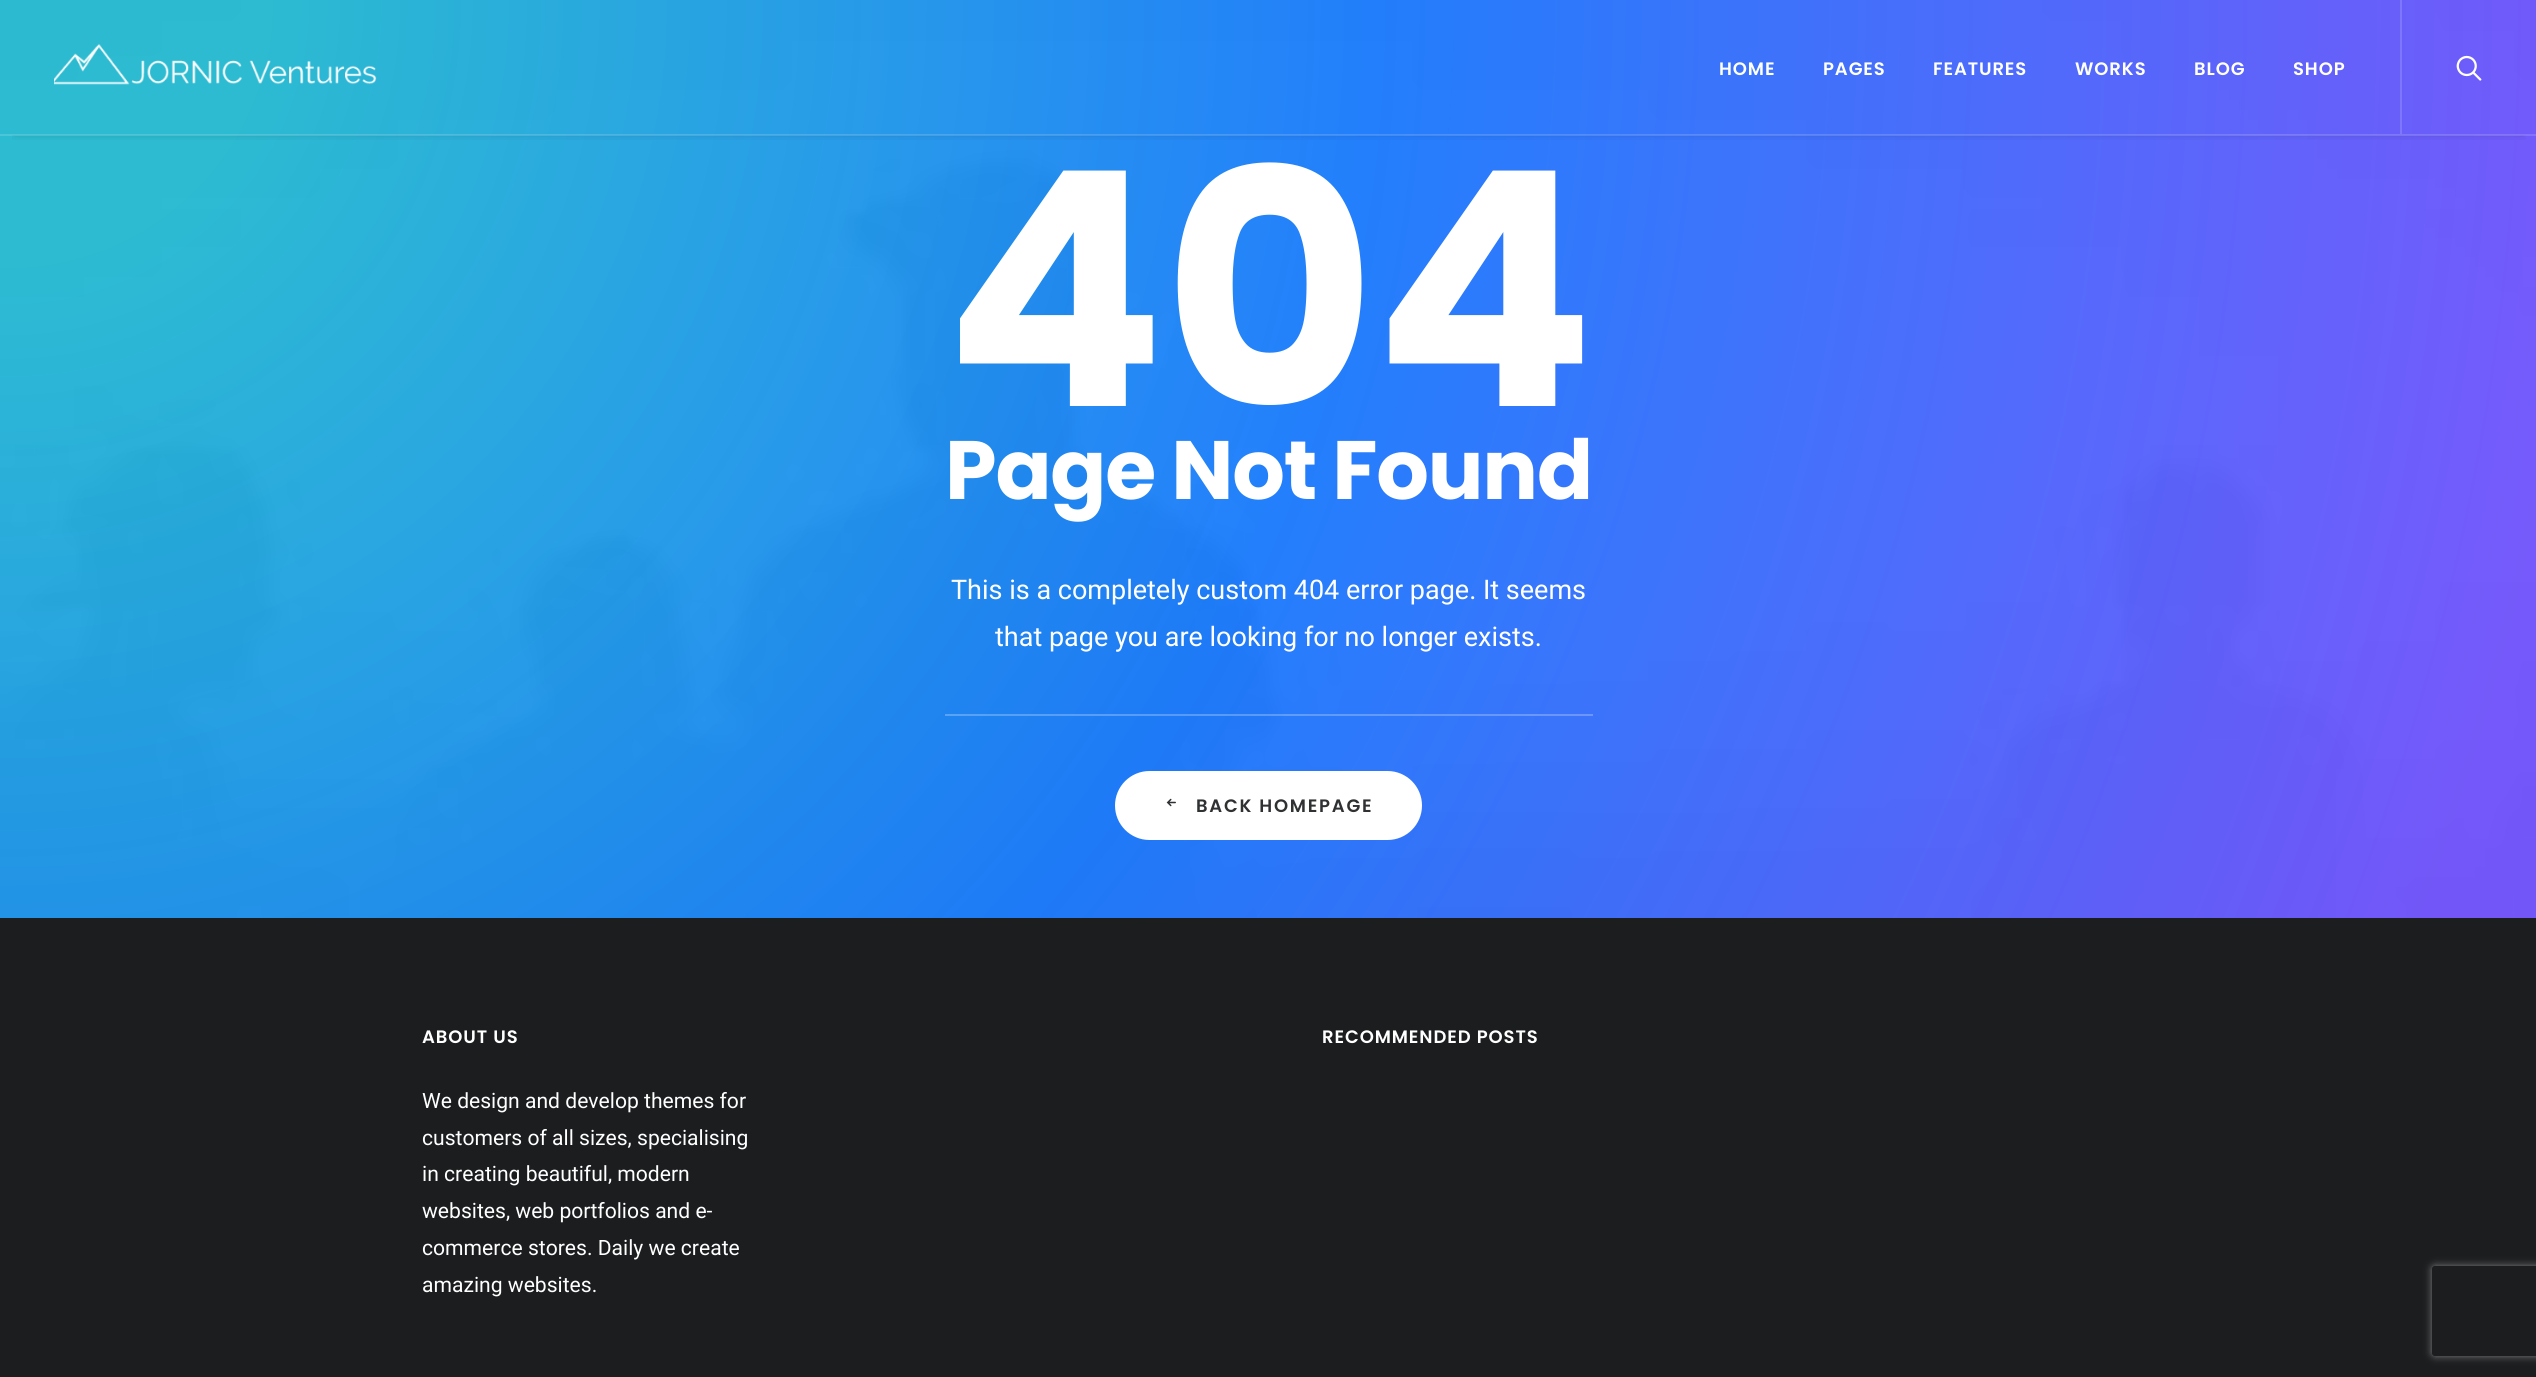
#include <cairo.h>
#include <math.h>
#include <stddef.h>

static cairo_t *ctx;

static void use_color(int r, int g, int b) {
    cairo_set_source_rgb(ctx, r / 255.0, g / 255.0, b / 255.0);
}

static void spaced_text(double x, double y, const char *s, double letter, double word) {
    cairo_move_to(ctx, x, y);
    while (*s) {
        char ch[5] = {0};
        int n = 0;
        do ch[n++] = *s++; while ((*s & 0xC0) == 0x80);
        cairo_show_text(ctx, ch);
        cairo_rel_move_to(ctx, letter + word * (*ch == ' '), 0);
    }
}

static void round_rect(double x, double y, double w, double h, double r) {
    cairo_new_sub_path(ctx);
    cairo_arc(ctx, x + w - r, y + h - r, r, 0, M_PI / 2);
    cairo_arc(ctx, x + r, y + h - r, r, M_PI / 2, M_PI);
    cairo_arc(ctx, x + r, y + r, r, M_PI, 1.5 * M_PI);
    cairo_arc(ctx, x + w - r, y + r, r, 1.5 * M_PI, 2 * M_PI);
    cairo_close_path(ctx);
}

static void shadow(double x, double y, double w, double h, double r, double blur, double alpha) {
    cairo_push_group_with_content(ctx, CAIRO_CONTENT_ALPHA);
    cairo_set_operator(ctx, CAIRO_OPERATOR_SOURCE);
    for (int i = 15; i >= -15 && fmin(w, h) + blur * i / 3 > 0; i -= 2) {
        double e = blur * i / 6;
        cairo_set_source_rgba(ctx, 0, 0, 0, alpha * erfc((i - 1) / 8.5) / 2);
        round_rect(x - e, y - e, w + 2 * e, h + 2 * e, fmax(0, fmin(r + e + blur * .6, fmin(w, h) / 2 + e)));
        cairo_fill(ctx);
    }
    cairo_pattern_t *soft = cairo_pop_group(ctx);
    cairo_mask(ctx, soft);
    cairo_pattern_destroy(soft);
}

static void picture(const char *path, double x, double y, double w, double h) {
    cairo_surface_t *image = cairo_image_surface_create_from_png(path);
    cairo_save(ctx);
    cairo_set_source_surface(ctx, image, x, y);
    cairo_rectangle(ctx, x, y, w, h);
    cairo_fill(ctx);
    cairo_restore(ctx);
    cairo_surface_destroy(image);
}

int main(void) {
    cairo_surface_t *surface = cairo_image_surface_create(CAIRO_FORMAT_RGB24, 2536, 1377);
    ctx = cairo_create(surface);
    cairo_font_options_t *options = cairo_font_options_create();
    cairo_font_options_set_hint_metrics(options, CAIRO_HINT_METRICS_OFF);
    cairo_font_options_set_hint_style(options, CAIRO_HINT_STYLE_NONE);
    cairo_set_font_options(ctx, options);
    cairo_set_miter_limit(ctx, 4);
    use_color(255, 255, 255);
    cairo_paint(ctx);
    picture("img3.png", 0, 0, 2536, 918);
    cairo_save(ctx);
    cairo_rectangle(ctx, 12, 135, 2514, 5);
    cairo_clip(ctx);
    use_color(0, 0, 0);
    shadow(15, 21, 2508, 105, 0, 7.5, 0.6);
    cairo_restore(ctx);
    cairo_set_source_rgba(ctx, 1, 1, 1, 0.15);
    cairo_rectangle(ctx, 0, 134, 2536, 2);
    cairo_fill(ctx);
    picture("img1.png", 54, 44, 323, 41);
    cairo_select_font_face(ctx, "Poppins SemiBold", CAIRO_FONT_SLANT_NORMAL, CAIRO_FONT_WEIGHT_NORMAL);
    cairo_set_font_size(ctx, 18);
    use_color(255, 255, 255);
    spaced_text(1719, 75, "HOME", 0.9, 0);
    spaced_text(1823, 75, "PAGES", 0.9, 0);
    spaced_text(1933, 75, "FEATURES", 0.9, 0);
    spaced_text(2075, 75, "WORKS", 0.9, 0);
    spaced_text(2194, 75, "BLOG", 0.9, 0);
    spaced_text(2293, 75, "SHOP", 0.9, 0);
    use_color(127, 119, 251);
    cairo_rectangle(ctx, 2400, 0, 2, 134);
    cairo_fill(ctx);
    picture("img2.png", 2456, 55, 26, 26);
    cairo_select_font_face(ctx, "Poppins", CAIRO_FONT_SLANT_NORMAL, CAIRO_FONT_WEIGHT_BOLD);
    cairo_set_font_size(ctx, 327);
    use_color(255, 255, 255);
    spaced_text(944, 406, "404", -2.5, 0);
    cairo_set_font_size(ctx, 82.75);
    spaced_text(945, 499, "Page Not Found", -1.25, 0);
    cairo_select_font_face(ctx, "Roboto", CAIRO_FONT_SLANT_NORMAL, CAIRO_FONT_WEIGHT_NORMAL);
    cairo_set_font_size(ctx, 27);
    cairo_move_to(ctx, 951, 599);
    cairo_show_text(ctx, "This is a completely custom 404 error page. It seems");
    cairo_move_to(ctx, 995, 646);
    cairo_show_text(ctx, "that page you are looking for no longer exists.");
    cairo_set_source_rgba(ctx, 1, 1, 1, 0.25);
    cairo_rectangle(ctx, 945, 714, 648, 2);
    cairo_fill(ctx);
    use_color(255, 255, 255);
    round_rect(1116, 772, 305, 67, 33.5);
    cairo_fill_preserve(ctx);
    cairo_stroke(ctx);
    picture("img4.png", 1166, 798, 10, 9);
    cairo_select_font_face(ctx, "Poppins SemiBold", CAIRO_FONT_SLANT_NORMAL, CAIRO_FONT_WEIGHT_NORMAL);
    cairo_set_font_size(ctx, 18);
    use_color(48, 49, 51);
    spaced_text(1196, 812, "BACK HOMEPAGE", 1.75, 0);
    use_color(27, 29, 31);
    cairo_rectangle(ctx, 0, 918, 2536, 459);
    cairo_fill(ctx);
    use_color(255, 255, 255);
    spaced_text(422, 1043, "ABOUT US", 0.9, 0);
    cairo_select_font_face(ctx, "Roboto", CAIRO_FONT_SLANT_NORMAL, CAIRO_FONT_WEIGHT_NORMAL);
    cairo_set_font_size(ctx, 21.1);
    cairo_move_to(ctx, 422, 1108);
    cairo_show_text(ctx, "We design and develop themes for");
    cairo_move_to(ctx, 422, 1145);
    cairo_show_text(ctx, "customers of all sizes, specialising");
    cairo_move_to(ctx, 422, 1181);
    cairo_show_text(ctx, "in creating beautiful, modern");
    cairo_move_to(ctx, 422, 1218);
    cairo_show_text(ctx, "websites, web portfolios and e-");
    cairo_move_to(ctx, 422, 1255);
    cairo_show_text(ctx, "commerce stores. Daily we create");
    cairo_move_to(ctx, 422, 1292);
    cairo_show_text(ctx, "amazing websites.");
    cairo_select_font_face(ctx, "Poppins SemiBold", CAIRO_FONT_SLANT_NORMAL, CAIRO_FONT_WEIGHT_NORMAL);
    cairo_set_font_size(ctx, 18);
    spaced_text(1322, 1043, "RECOMMENDED POSTS", 0.9, 0);
    cairo_save(ctx);
    cairo_set_fill_rule(ctx, CAIRO_FILL_RULE_EVEN_ODD);
    cairo_new_path(ctx);
    cairo_move_to(ctx, 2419, 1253);
    cairo_line_to(ctx, 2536, 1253);
    cairo_line_to(ctx, 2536, 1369);
    cairo_line_to(ctx, 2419, 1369);
    cairo_close_path(ctx);
    cairo_move_to(ctx, 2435, 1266);
    cairo_line_to(ctx, 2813, 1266);
    cairo_curve_to(ctx, 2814.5, 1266, 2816, 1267.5, 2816, 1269);
    cairo_line_to(ctx, 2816, 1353);
    cairo_curve_to(ctx, 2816, 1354.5, 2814.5, 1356, 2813, 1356);
    cairo_line_to(ctx, 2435, 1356);
    cairo_curve_to(ctx, 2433.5, 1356, 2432, 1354.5, 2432, 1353);
    cairo_line_to(ctx, 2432, 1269);
    cairo_curve_to(ctx, 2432, 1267.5, 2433.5, 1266, 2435, 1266);
    cairo_close_path(ctx);
    cairo_clip(ctx);
    use_color(128, 128, 128);
    shadow(2432, 1266, 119, 90, 3, 4, 1);
    cairo_restore(ctx);
    cairo_surface_write_to_png(surface, "result.png");
    cairo_font_options_destroy(options);
    cairo_destroy(ctx);
    cairo_surface_destroy(surface);
    return 0;
}
